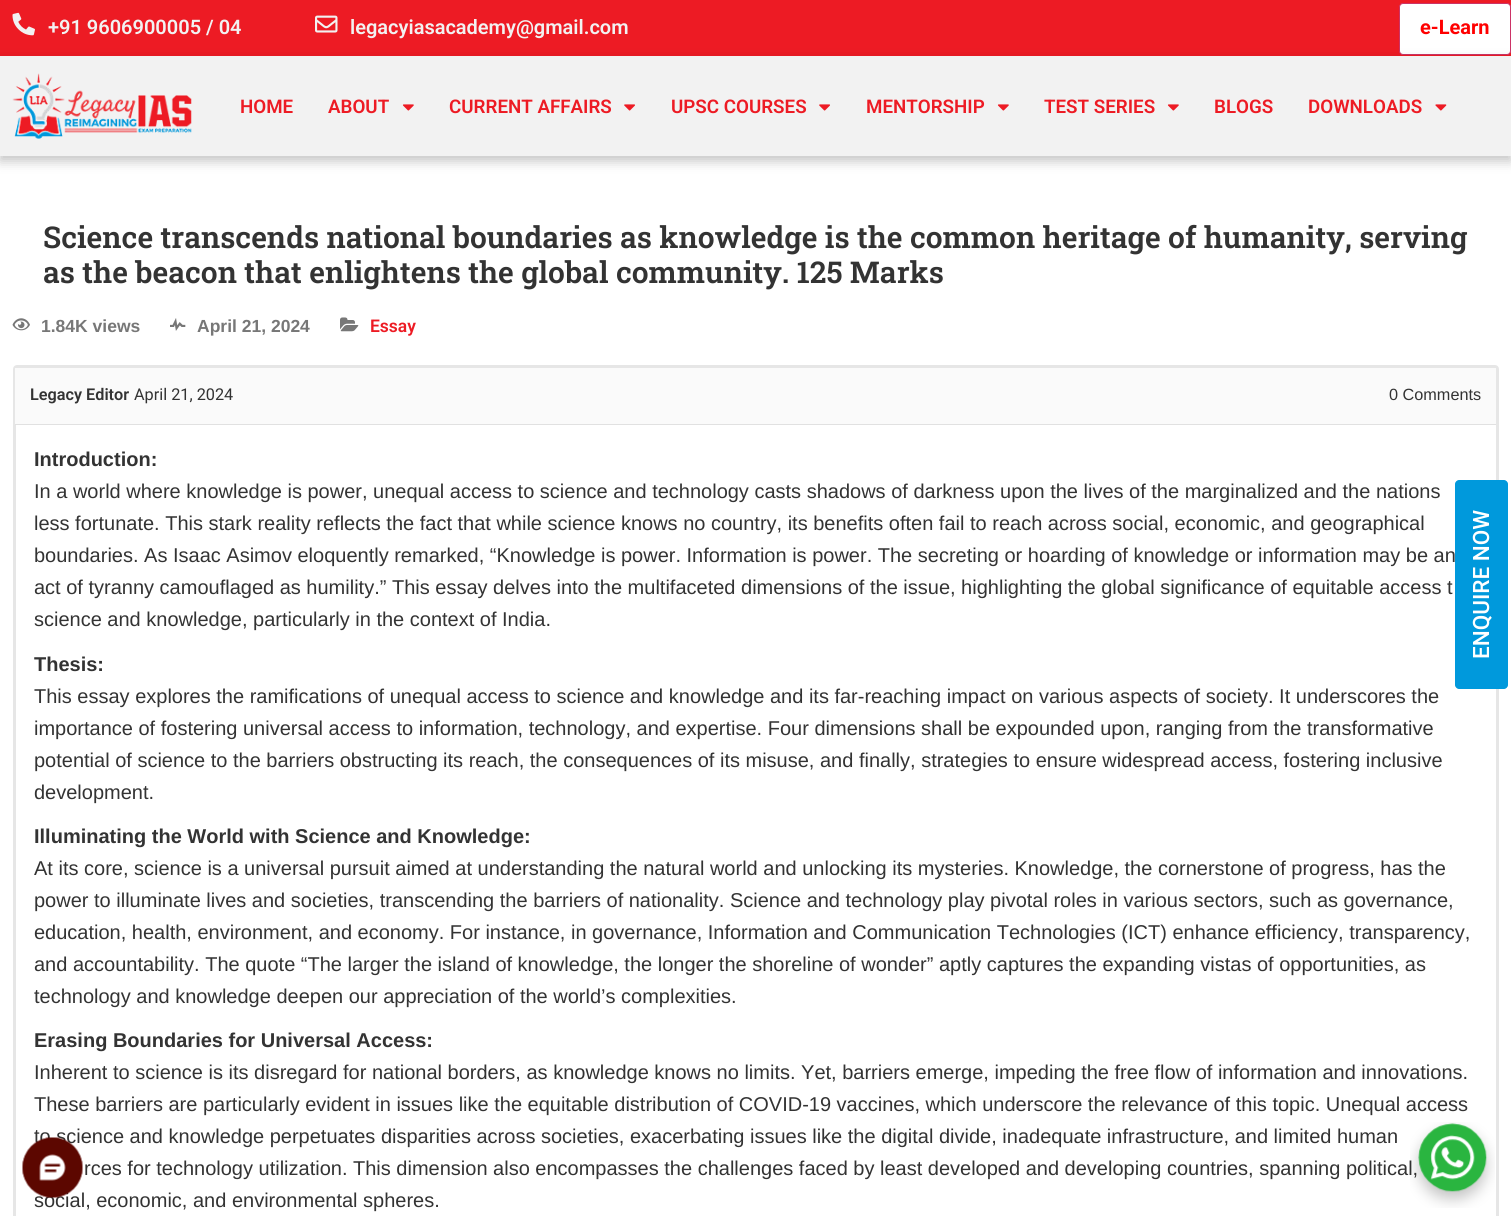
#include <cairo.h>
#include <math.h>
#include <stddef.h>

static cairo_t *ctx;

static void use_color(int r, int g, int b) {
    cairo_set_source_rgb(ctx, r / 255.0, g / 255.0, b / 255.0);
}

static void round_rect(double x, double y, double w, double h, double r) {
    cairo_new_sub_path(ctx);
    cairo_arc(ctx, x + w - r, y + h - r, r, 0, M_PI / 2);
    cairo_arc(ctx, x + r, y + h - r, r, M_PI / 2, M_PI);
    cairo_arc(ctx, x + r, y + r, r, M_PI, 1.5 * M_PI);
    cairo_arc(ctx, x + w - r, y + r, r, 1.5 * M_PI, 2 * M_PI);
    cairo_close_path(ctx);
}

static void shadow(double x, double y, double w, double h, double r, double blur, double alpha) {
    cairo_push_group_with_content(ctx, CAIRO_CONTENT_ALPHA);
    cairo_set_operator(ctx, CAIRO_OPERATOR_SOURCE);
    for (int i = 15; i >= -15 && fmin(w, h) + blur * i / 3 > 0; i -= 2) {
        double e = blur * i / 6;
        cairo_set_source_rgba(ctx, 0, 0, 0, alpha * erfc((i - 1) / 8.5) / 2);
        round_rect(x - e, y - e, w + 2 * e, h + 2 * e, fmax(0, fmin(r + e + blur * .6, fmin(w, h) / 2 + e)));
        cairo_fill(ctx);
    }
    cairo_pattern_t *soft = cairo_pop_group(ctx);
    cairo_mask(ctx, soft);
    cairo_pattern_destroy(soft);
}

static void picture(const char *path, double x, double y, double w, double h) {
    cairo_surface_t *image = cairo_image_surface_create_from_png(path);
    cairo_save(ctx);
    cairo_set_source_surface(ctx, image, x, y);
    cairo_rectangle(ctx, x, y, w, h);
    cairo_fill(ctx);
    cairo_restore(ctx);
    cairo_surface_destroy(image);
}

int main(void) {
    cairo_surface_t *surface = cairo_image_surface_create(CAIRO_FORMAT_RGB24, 1511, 1216);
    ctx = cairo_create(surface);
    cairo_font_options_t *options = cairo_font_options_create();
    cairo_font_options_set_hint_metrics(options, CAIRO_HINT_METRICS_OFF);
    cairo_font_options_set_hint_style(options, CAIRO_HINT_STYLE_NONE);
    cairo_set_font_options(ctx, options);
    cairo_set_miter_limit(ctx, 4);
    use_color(255, 255, 255);
    cairo_paint(ctx);
    use_color(237, 27, 36);
    cairo_rectangle(ctx, 0, 0, 1511, 56);
    cairo_fill(ctx);
    picture("img1.png", 12, 12, 23, 24);
    cairo_select_font_face(ctx, "Roboto SemiBold", CAIRO_FONT_SLANT_NORMAL, CAIRO_FONT_WEIGHT_NORMAL);
    cairo_set_font_size(ctx, 20);
    use_color(242, 242, 242);
    cairo_move_to(ctx, 48, 34);
    cairo_show_text(ctx, "+91 9606900005 / 04");
    picture("img2.png", 315, 15, 23, 18);
    cairo_move_to(ctx, 350, 34);
    cairo_show_text(ctx, "legacyiasacademy@gmail.com");
    use_color(255, 255, 255);
    round_rect(1399.5, 3.5, 111, 51, 3.5);
    cairo_fill_preserve(ctx);
    use_color(204, 51, 102);
    cairo_set_line_width(ctx, 1);
    cairo_stroke(ctx);
    cairo_select_font_face(ctx, "Roboto", CAIRO_FONT_SLANT_NORMAL, CAIRO_FONT_WEIGHT_BOLD);
    use_color(255, 0, 0);
    cairo_move_to(ctx, 1420, 34);
    cairo_show_text(ctx, "e-Learn");
    use_color(0, 0, 0);
    shadow(0, 61, 1511, 100, 0, 6, 0.24);
    use_color(242, 242, 242);
    cairo_rectangle(ctx, 0, 56, 1511, 100);
    cairo_fill(ctx);
    picture("img3.png", 12, 73, 180, 66);
    cairo_select_font_face(ctx, "Roboto SemiBold", CAIRO_FONT_SLANT_NORMAL, CAIRO_FONT_WEIGHT_NORMAL);
    cairo_set_font_size(ctx, 18.75);
    use_color(237, 27, 36);
    cairo_move_to(ctx, 240, 113);
    cairo_show_text(ctx, "HOME");
    cairo_move_to(ctx, 328, 113);
    cairo_show_text(ctx, "ABOUT");
    picture("img4.png", 402, 104, 12, 7);
    cairo_move_to(ctx, 449, 113);
    cairo_show_text(ctx, "CURRENT AFFAIRS");
    picture("img5.png", 624, 104, 11, 7);
    cairo_move_to(ctx, 671, 113);
    cairo_show_text(ctx, "UPSC COURSES");
    picture("img5.png", 819, 104, 11, 7);
    cairo_move_to(ctx, 866, 113);
    cairo_show_text(ctx, "MENTORSHIP");
    picture("img4.png", 997, 104, 12, 7);
    cairo_move_to(ctx, 1044, 113);
    cairo_show_text(ctx, "TEST SERIES");
    picture("img4.png", 1167, 104, 12, 7);
    cairo_move_to(ctx, 1214, 113);
    cairo_show_text(ctx, "BLOGS");
    cairo_move_to(ctx, 1308, 113);
    cairo_show_text(ctx, "DOWNLOADS");
    picture("img6.png", 1435, 104, 12, 7);
    cairo_select_font_face(ctx, "Roboto Slab SemiBold", CAIRO_FONT_SLANT_NORMAL, CAIRO_FONT_WEIGHT_NORMAL);
    cairo_set_font_size(ctx, 30);
    use_color(51, 51, 51);
    cairo_move_to(ctx, 43, 248);
    cairo_show_text(ctx, "Science transcends national boundaries as knowledge is the common heritage of humanity, serving");
    cairo_move_to(ctx, 43, 283);
    cairo_show_text(ctx, "as the beacon that enlightens the global community. 125 Marks");
    picture("img7.png", 12, 318, 18, 13);
    cairo_select_font_face(ctx, "Liberation Sans", CAIRO_FONT_SLANT_NORMAL, CAIRO_FONT_WEIGHT_BOLD);
    cairo_set_font_size(ctx, 17.5);
    use_color(119, 119, 119);
    cairo_move_to(ctx, 41, 332);
    cairo_show_text(ctx, "1.84K views");
    picture("img8.png", 170, 318, 16, 13);
    cairo_move_to(ctx, 197, 332);
    cairo_show_text(ctx, "April 21, 2024");
    picture("img9.png", 340, 317, 19, 15);
    cairo_select_font_face(ctx, "Roboto SemiBold", CAIRO_FONT_SLANT_NORMAL, CAIRO_FONT_WEIGHT_NORMAL);
    use_color(237, 27, 36);
    cairo_move_to(ctx, 370, 332);
    cairo_show_text(ctx, "Essay");
    round_rect(14.5, 366.5, 1483, 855, 2.5);
    use_color(230, 230, 230);
    cairo_set_line_width(ctx, 3);
    cairo_stroke(ctx);
    use_color(250, 250, 250);
    cairo_rectangle(ctx, 15, 368, 1481, 56);
    cairo_fill(ctx);
    use_color(225, 225, 225);
    cairo_rectangle(ctx, 15, 424, 1481, 1);
    cairo_fill(ctx);
    cairo_set_font_size(ctx, 16.25);
    use_color(51, 51, 51);
    cairo_move_to(ctx, 30, 400);
    cairo_show_text(ctx, "Legacy Editor");
    cairo_select_font_face(ctx, "Roboto", CAIRO_FONT_SLANT_NORMAL, CAIRO_FONT_WEIGHT_NORMAL);
    cairo_move_to(ctx, 134, 400);
    cairo_show_text(ctx, "April 21, 2024");
    cairo_select_font_face(ctx, "Liberation Sans", CAIRO_FONT_SLANT_NORMAL, CAIRO_FONT_WEIGHT_NORMAL);
    cairo_move_to(ctx, 1389, 400);
    cairo_show_text(ctx, "0 Comments");
    cairo_select_font_face(ctx, "Liberation Sans", CAIRO_FONT_SLANT_NORMAL, CAIRO_FONT_WEIGHT_BOLD);
    cairo_set_font_size(ctx, 20);
    cairo_move_to(ctx, 34, 466);
    cairo_show_text(ctx, "Introduction:");
    cairo_select_font_face(ctx, "Liberation Sans", CAIRO_FONT_SLANT_NORMAL, CAIRO_FONT_WEIGHT_NORMAL);
    cairo_move_to(ctx, 34, 498);
    cairo_show_text(ctx, "In a world where knowledge is power, unequal access to science and technology casts shadows of darkness upon the lives of the marginalized and the nations");
    cairo_move_to(ctx, 34, 530);
    cairo_show_text(ctx, "less fortunate. This stark reality reflects the fact that while science knows no country, its benefits often fail to reach across social, economic, and geographical");
    cairo_move_to(ctx, 34, 562);
    cairo_show_text(ctx, "boundaries. As Isaac Asimov eloquently remarked, “Knowledge is power. Information is power. The secreting or hoarding of knowledge or information may be an");
    cairo_move_to(ctx, 34, 594);
    cairo_show_text(ctx, "act of tyranny camouflaged as humility.” This essay delves into the multifaceted dimensions of the issue, highlighting the global significance of equitable access t");
    cairo_move_to(ctx, 34, 626);
    cairo_show_text(ctx, "science and knowledge, particularly in the context of India.");
    cairo_select_font_face(ctx, "Liberation Sans", CAIRO_FONT_SLANT_NORMAL, CAIRO_FONT_WEIGHT_BOLD);
    cairo_move_to(ctx, 34, 671);
    cairo_show_text(ctx, "Thesis:");
    cairo_select_font_face(ctx, "Liberation Sans", CAIRO_FONT_SLANT_NORMAL, CAIRO_FONT_WEIGHT_NORMAL);
    cairo_move_to(ctx, 34, 703);
    cairo_show_text(ctx, "This essay explores the ramifications of unequal access to science and knowledge and its far-reaching impact on various aspects of society. It underscores the");
    cairo_move_to(ctx, 34, 735);
    cairo_show_text(ctx, "importance of fostering universal access to information, technology, and expertise. Four dimensions shall be expounded upon, ranging from the transformative");
    cairo_move_to(ctx, 34, 767);
    cairo_show_text(ctx, "potential of science to the barriers obstructing its reach, the consequences of its misuse, and finally, strategies to ensure widespread access, fostering inclusive");
    cairo_move_to(ctx, 34, 799);
    cairo_show_text(ctx, "development.");
    cairo_select_font_face(ctx, "Liberation Sans", CAIRO_FONT_SLANT_NORMAL, CAIRO_FONT_WEIGHT_BOLD);
    cairo_move_to(ctx, 34, 843);
    cairo_show_text(ctx, "Illuminating the World with Science and Knowledge:");
    cairo_select_font_face(ctx, "Liberation Sans", CAIRO_FONT_SLANT_NORMAL, CAIRO_FONT_WEIGHT_NORMAL);
    cairo_move_to(ctx, 34, 875);
    cairo_show_text(ctx, "At its core, science is a universal pursuit aimed at understanding the natural world and unlocking its mysteries. Knowledge, the cornerstone of progress, has the");
    cairo_move_to(ctx, 34, 907);
    cairo_show_text(ctx, "power to illuminate lives and societies, transcending the barriers of nationality. Science and technology play pivotal roles in various sectors, such as governance,");
    cairo_move_to(ctx, 34, 939);
    cairo_show_text(ctx, "education, health, environment, and economy. For instance, in governance, Information and Communication Technologies (ICT) enhance efficiency, transparency,");
    cairo_move_to(ctx, 34, 971);
    cairo_show_text(ctx, "and accountability. The quote “The larger the island of knowledge, the longer the shoreline of wonder” aptly captures the expanding vistas of opportunities, as");
    cairo_move_to(ctx, 34, 1003);
    cairo_show_text(ctx, "technology and knowledge deepen our appreciation of the world’s complexities.");
    cairo_select_font_face(ctx, "Liberation Sans", CAIRO_FONT_SLANT_NORMAL, CAIRO_FONT_WEIGHT_BOLD);
    cairo_move_to(ctx, 34, 1047);
    cairo_show_text(ctx, "Erasing Boundaries for Universal Access:");
    cairo_select_font_face(ctx, "Liberation Sans", CAIRO_FONT_SLANT_NORMAL, CAIRO_FONT_WEIGHT_NORMAL);
    cairo_move_to(ctx, 34, 1079);
    cairo_show_text(ctx, "Inherent to science is its disregard for national borders, as knowledge knows no limits. Yet, barriers emerge, impeding the free flow of information and innovations.");
    cairo_move_to(ctx, 34, 1111);
    cairo_show_text(ctx, "These barriers are particularly evident in issues like the equitable distribution of COVID-19 vaccines, which underscore the relevance of this topic. Unequal access");
    cairo_move_to(ctx, 34, 1143);
    cairo_show_text(ctx, "to science and knowledge perpetuates disparities across societies, exacerbating issues like the digital divide, inadequate infrastructure, and limited human");
    cairo_move_to(ctx, 84, 1175);
    cairo_show_text(ctx, "rces for technology utilization. This dimension also encompasses the challenges faced by least developed and developing countries, spanning political,");
    cairo_move_to(ctx, 34, 1207);
    cairo_show_text(ctx, "social, economic, and environmental spheres.");
    use_color(0, 153, 220);
    cairo_new_path(ctx);
    cairo_move_to(ctx, 1455, 685);
    cairo_line_to(ctx, 1455, 484);
    cairo_curve_to(ctx, 1455, 482, 1457, 480, 1459, 480);
    cairo_line_to(ctx, 1504, 480);
    cairo_curve_to(ctx, 1506, 480, 1508, 482, 1508, 484);
    cairo_line_to(ctx, 1508, 685);
    cairo_curve_to(ctx, 1508, 687, 1506, 689, 1504, 689);
    cairo_line_to(ctx, 1459, 689);
    cairo_curve_to(ctx, 1457, 689, 1455, 687, 1455, 685);
    cairo_close_path(ctx);
    cairo_fill(ctx);
    cairo_select_font_face(ctx, "Roboto Medium", CAIRO_FONT_SLANT_NORMAL, CAIRO_FONT_WEIGHT_NORMAL);
    cairo_set_font_size(ctx, 22.5);
    use_color(255, 255, 255);
    cairo_save(ctx);
    cairo_translate(ctx, 1489, 659);
    cairo_rotate(ctx, -90 * M_PI / 180);
    cairo_move_to(ctx, 0, 0);
    cairo_show_text(ctx, "ENQUIRE NOW");
    cairo_restore(ctx);
    picture("img10.png", 22, 1137, 61, 61);
    picture("img11.png", 1410, 1122, 85, 86);
    cairo_surface_write_to_png(surface, "result.png");
    cairo_font_options_destroy(options);
    cairo_destroy(ctx);
    cairo_surface_destroy(surface);
    return 0;
}
